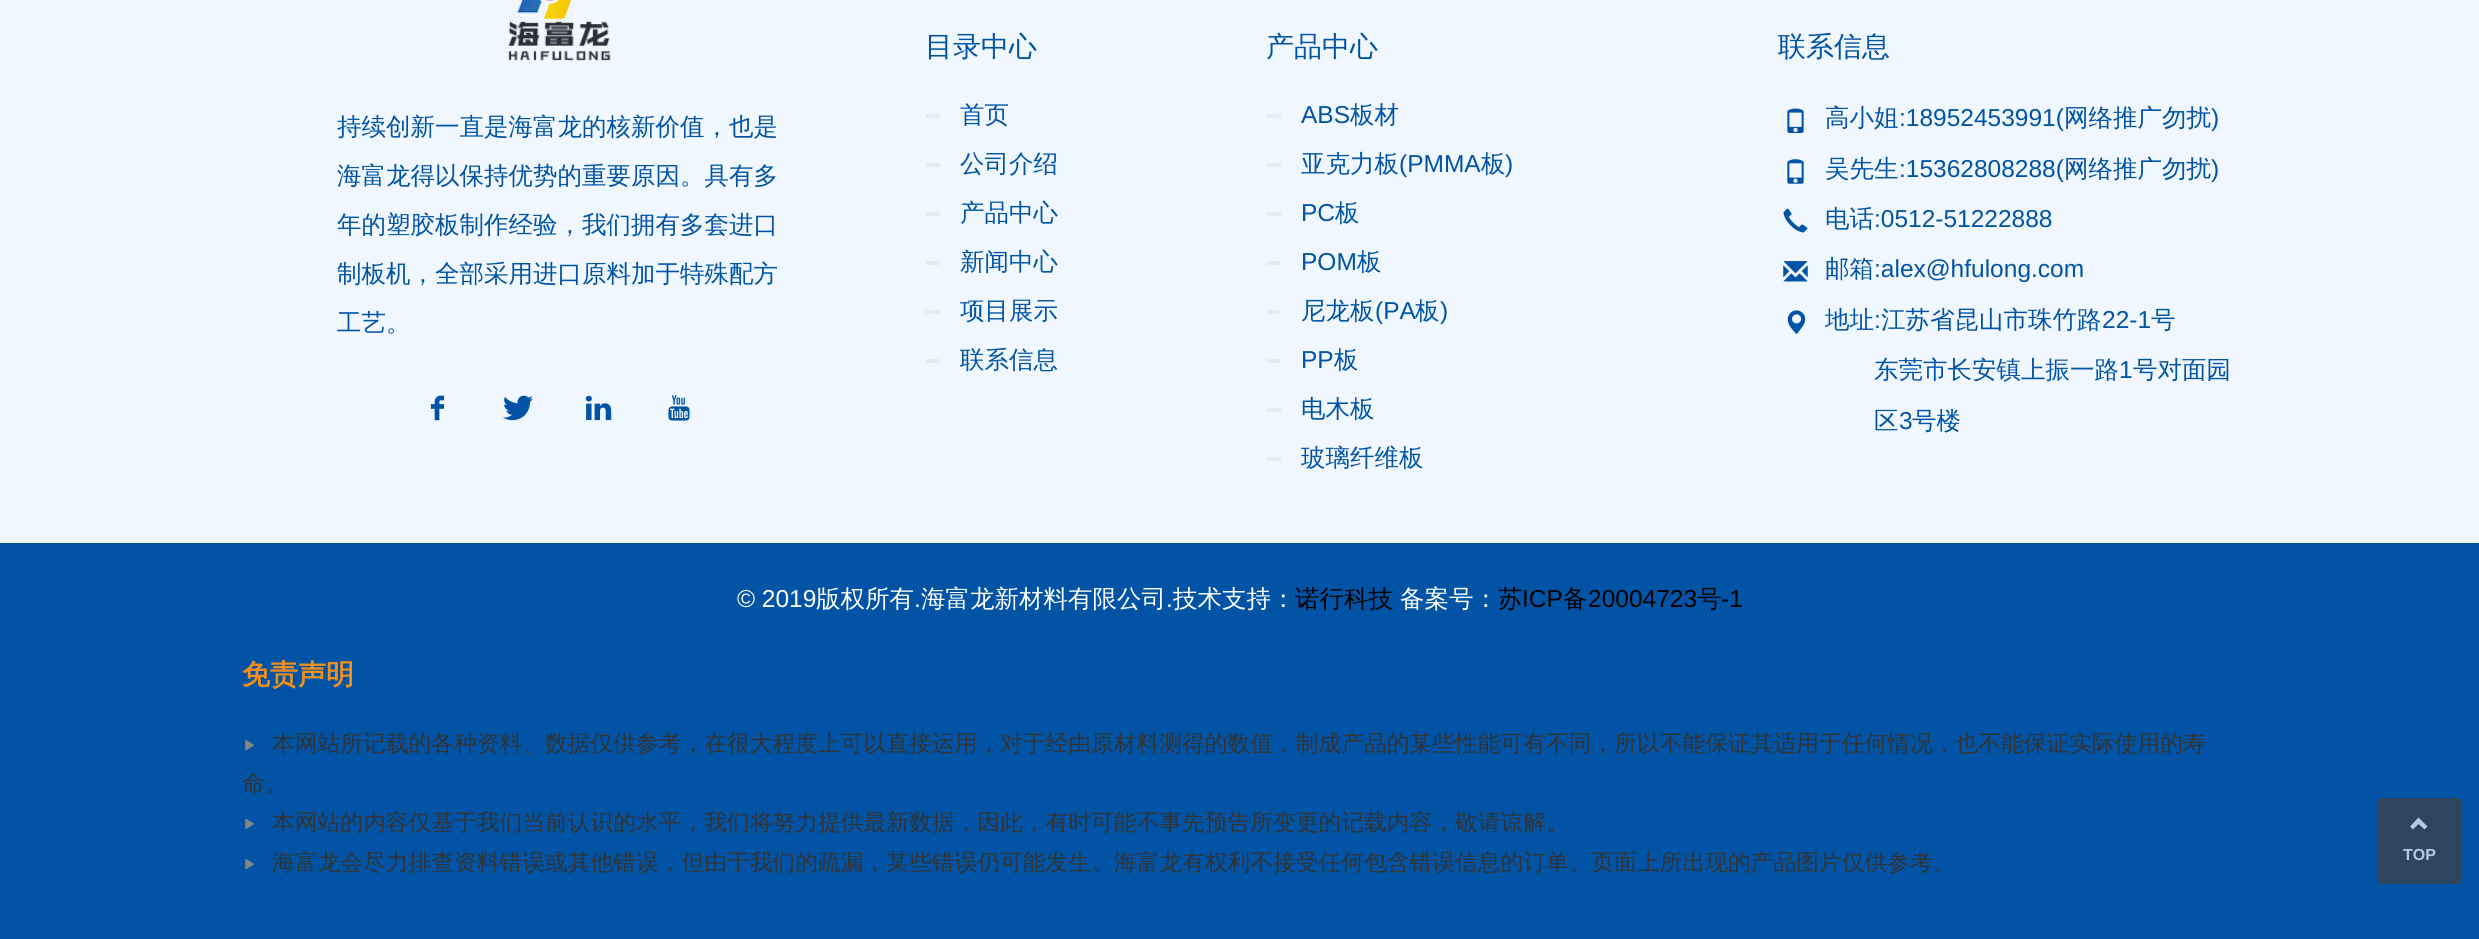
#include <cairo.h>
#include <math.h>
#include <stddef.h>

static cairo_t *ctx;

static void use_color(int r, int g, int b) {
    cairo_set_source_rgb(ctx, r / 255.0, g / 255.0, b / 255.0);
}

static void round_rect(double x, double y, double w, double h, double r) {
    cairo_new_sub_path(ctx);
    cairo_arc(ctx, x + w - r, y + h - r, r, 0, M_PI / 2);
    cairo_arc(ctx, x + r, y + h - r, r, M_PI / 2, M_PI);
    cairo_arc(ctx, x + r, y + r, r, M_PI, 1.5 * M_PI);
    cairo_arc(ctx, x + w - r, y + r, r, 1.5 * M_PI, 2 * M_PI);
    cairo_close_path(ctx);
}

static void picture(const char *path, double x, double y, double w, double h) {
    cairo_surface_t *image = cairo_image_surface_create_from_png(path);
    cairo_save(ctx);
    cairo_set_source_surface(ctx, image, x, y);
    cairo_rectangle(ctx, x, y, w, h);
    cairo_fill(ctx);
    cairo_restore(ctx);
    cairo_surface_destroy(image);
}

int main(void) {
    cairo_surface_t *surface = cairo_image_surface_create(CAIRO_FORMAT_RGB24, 2479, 939);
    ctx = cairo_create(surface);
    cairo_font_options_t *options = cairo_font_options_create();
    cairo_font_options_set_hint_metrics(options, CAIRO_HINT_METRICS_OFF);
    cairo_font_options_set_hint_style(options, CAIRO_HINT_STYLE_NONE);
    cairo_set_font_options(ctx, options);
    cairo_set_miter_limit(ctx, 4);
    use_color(240, 247, 255);
    cairo_paint(ctx);
    picture("img1.png", 508, 0, 103, 61);
    cairo_select_font_face(ctx, "WenQuanYi Zen Hei Medium", CAIRO_FONT_SLANT_NORMAL, CAIRO_FONT_WEIGHT_NORMAL);
    cairo_set_font_size(ctx, 24.5);
    use_color(0, 83, 165);
    cairo_move_to(ctx, 337, 135);
    cairo_show_text(ctx, "持续创新一直是海富龙的核新价值，也是");
    cairo_move_to(ctx, 337, 184);
    cairo_show_text(ctx, "海富龙得以保持优势的重要原因。具有多");
    cairo_move_to(ctx, 337, 233);
    cairo_show_text(ctx, "年的塑胶板制作经验，我们拥有多套进口");
    cairo_move_to(ctx, 337, 282);
    cairo_show_text(ctx, "制板机，全部采用进口原料加于特殊配方");
    cairo_move_to(ctx, 337, 331);
    cairo_show_text(ctx, "工艺。");
    picture("img2.png", 430, 395, 15, 26);
    picture("img3.png", 503, 395, 30, 26);
    picture("img4.png", 585, 395, 27, 26);
    picture("img5.png", 668, 395, 22, 26);
    cairo_set_font_size(ctx, 28);
    cairo_move_to(ctx, 925, 56);
    cairo_show_text(ctx, "目录中心");
    use_color(228, 235, 242);
    cairo_rectangle(ctx, 926, 114, 14, 4);
    cairo_fill(ctx);
    cairo_set_font_size(ctx, 24.5);
    use_color(0, 83, 165);
    cairo_move_to(ctx, 960, 123);
    cairo_show_text(ctx, "首页");
    use_color(228, 235, 242);
    cairo_rectangle(ctx, 926, 163, 14, 4);
    cairo_fill(ctx);
    use_color(0, 83, 165);
    cairo_move_to(ctx, 960, 172);
    cairo_show_text(ctx, "公司介绍");
    use_color(228, 235, 242);
    cairo_rectangle(ctx, 926, 212, 14, 4);
    cairo_fill(ctx);
    use_color(0, 83, 165);
    cairo_move_to(ctx, 960, 221);
    cairo_show_text(ctx, "产品中心");
    use_color(228, 235, 242);
    cairo_rectangle(ctx, 926, 261, 14, 4);
    cairo_fill(ctx);
    use_color(0, 83, 165);
    cairo_move_to(ctx, 960, 270);
    cairo_show_text(ctx, "新闻中心");
    use_color(228, 235, 242);
    cairo_rectangle(ctx, 926, 310, 14, 4);
    cairo_fill(ctx);
    use_color(0, 83, 165);
    cairo_move_to(ctx, 960, 319);
    cairo_show_text(ctx, "项目展示");
    use_color(228, 235, 242);
    cairo_rectangle(ctx, 926, 359, 14, 4);
    cairo_fill(ctx);
    use_color(0, 83, 165);
    cairo_move_to(ctx, 960, 368);
    cairo_show_text(ctx, "联系信息");
    cairo_set_font_size(ctx, 28);
    cairo_move_to(ctx, 1266, 56);
    cairo_show_text(ctx, "产品中心");
    use_color(228, 235, 242);
    cairo_rectangle(ctx, 1267, 114, 14, 4);
    cairo_fill(ctx);
    cairo_select_font_face(ctx, "Liberation Sans", CAIRO_FONT_SLANT_NORMAL, CAIRO_FONT_WEIGHT_NORMAL);
    cairo_set_font_size(ctx, 24.5);
    use_color(0, 83, 165);
    cairo_move_to(ctx, 1301, 123);
    cairo_show_text(ctx, "ABS");
    cairo_select_font_face(ctx, "WenQuanYi Zen Hei Medium", CAIRO_FONT_SLANT_NORMAL, CAIRO_FONT_WEIGHT_NORMAL);
    cairo_move_to(ctx, 1350, 123);
    cairo_show_text(ctx, "板材");
    use_color(228, 235, 242);
    cairo_rectangle(ctx, 1267, 163, 14, 4);
    cairo_fill(ctx);
    use_color(0, 83, 165);
    cairo_move_to(ctx, 1301, 172);
    cairo_show_text(ctx, "亚克力板");
    cairo_select_font_face(ctx, "Liberation Sans", CAIRO_FONT_SLANT_NORMAL, CAIRO_FONT_WEIGHT_NORMAL);
    cairo_move_to(ctx, 1399, 172);
    cairo_show_text(ctx, "(PMMA");
    cairo_select_font_face(ctx, "WenQuanYi Zen Hei Medium", CAIRO_FONT_SLANT_NORMAL, CAIRO_FONT_WEIGHT_NORMAL);
    cairo_move_to(ctx, 1481, 172);
    cairo_show_text(ctx, "板");
    cairo_select_font_face(ctx, "Liberation Sans", CAIRO_FONT_SLANT_NORMAL, CAIRO_FONT_WEIGHT_NORMAL);
    cairo_move_to(ctx, 1505, 172);
    cairo_show_text(ctx, ")");
    use_color(228, 235, 242);
    cairo_rectangle(ctx, 1267, 212, 14, 4);
    cairo_fill(ctx);
    use_color(0, 83, 165);
    cairo_move_to(ctx, 1301, 221);
    cairo_show_text(ctx, "PC");
    cairo_select_font_face(ctx, "WenQuanYi Zen Hei Medium", CAIRO_FONT_SLANT_NORMAL, CAIRO_FONT_WEIGHT_NORMAL);
    cairo_move_to(ctx, 1335, 221);
    cairo_show_text(ctx, "板");
    use_color(228, 235, 242);
    cairo_rectangle(ctx, 1267, 261, 14, 4);
    cairo_fill(ctx);
    cairo_select_font_face(ctx, "Liberation Sans", CAIRO_FONT_SLANT_NORMAL, CAIRO_FONT_WEIGHT_NORMAL);
    use_color(0, 83, 165);
    cairo_move_to(ctx, 1301, 270);
    cairo_show_text(ctx, "POM");
    cairo_select_font_face(ctx, "WenQuanYi Zen Hei Medium", CAIRO_FONT_SLANT_NORMAL, CAIRO_FONT_WEIGHT_NORMAL);
    cairo_move_to(ctx, 1357, 270);
    cairo_show_text(ctx, "板");
    use_color(228, 235, 242);
    cairo_rectangle(ctx, 1267, 310, 14, 4);
    cairo_fill(ctx);
    use_color(0, 83, 165);
    cairo_move_to(ctx, 1301, 319);
    cairo_show_text(ctx, "尼龙板");
    cairo_select_font_face(ctx, "Liberation Sans", CAIRO_FONT_SLANT_NORMAL, CAIRO_FONT_WEIGHT_NORMAL);
    cairo_move_to(ctx, 1375, 319);
    cairo_show_text(ctx, "(PA");
    cairo_select_font_face(ctx, "WenQuanYi Zen Hei Medium", CAIRO_FONT_SLANT_NORMAL, CAIRO_FONT_WEIGHT_NORMAL);
    cairo_move_to(ctx, 1415, 319);
    cairo_show_text(ctx, "板");
    cairo_select_font_face(ctx, "Liberation Sans", CAIRO_FONT_SLANT_NORMAL, CAIRO_FONT_WEIGHT_NORMAL);
    cairo_move_to(ctx, 1440, 319);
    cairo_show_text(ctx, ")");
    use_color(228, 235, 242);
    cairo_rectangle(ctx, 1267, 359, 14, 4);
    cairo_fill(ctx);
    use_color(0, 83, 165);
    cairo_move_to(ctx, 1301, 368);
    cairo_show_text(ctx, "PP");
    cairo_select_font_face(ctx, "WenQuanYi Zen Hei Medium", CAIRO_FONT_SLANT_NORMAL, CAIRO_FONT_WEIGHT_NORMAL);
    cairo_move_to(ctx, 1334, 368);
    cairo_show_text(ctx, "板");
    use_color(228, 235, 242);
    cairo_rectangle(ctx, 1267, 408, 14, 4);
    cairo_fill(ctx);
    use_color(0, 83, 165);
    cairo_move_to(ctx, 1301, 417);
    cairo_show_text(ctx, "电木板");
    use_color(228, 235, 242);
    cairo_rectangle(ctx, 1267, 457, 14, 4);
    cairo_fill(ctx);
    use_color(0, 83, 165);
    cairo_move_to(ctx, 1301, 466);
    cairo_show_text(ctx, "玻璃纤维板");
    cairo_set_font_size(ctx, 28);
    cairo_move_to(ctx, 1778, 56);
    cairo_show_text(ctx, "联系信息");
    picture("img6.png", 1787, 108, 17, 25);
    cairo_set_font_size(ctx, 24.5);
    cairo_move_to(ctx, 1825, 126);
    cairo_show_text(ctx, "高小姐");
    cairo_select_font_face(ctx, "Liberation Sans", CAIRO_FONT_SLANT_NORMAL, CAIRO_FONT_WEIGHT_NORMAL);
    cairo_move_to(ctx, 1899, 126);
    cairo_show_text(ctx, ":18952453991(");
    cairo_select_font_face(ctx, "WenQuanYi Zen Hei Medium", CAIRO_FONT_SLANT_NORMAL, CAIRO_FONT_WEIGHT_NORMAL);
    cairo_move_to(ctx, 2064, 126);
    cairo_show_text(ctx, "网络推广勿扰");
    cairo_select_font_face(ctx, "Liberation Sans", CAIRO_FONT_SLANT_NORMAL, CAIRO_FONT_WEIGHT_NORMAL);
    cairo_move_to(ctx, 2211, 126);
    cairo_show_text(ctx, ")");
    picture("img7.png", 1787, 159, 17, 25);
    cairo_select_font_face(ctx, "WenQuanYi Zen Hei Medium", CAIRO_FONT_SLANT_NORMAL, CAIRO_FONT_WEIGHT_NORMAL);
    cairo_move_to(ctx, 1825, 177);
    cairo_show_text(ctx, "吴先生");
    cairo_select_font_face(ctx, "Liberation Sans", CAIRO_FONT_SLANT_NORMAL, CAIRO_FONT_WEIGHT_NORMAL);
    cairo_move_to(ctx, 1899, 177);
    cairo_show_text(ctx, ":15362808288(");
    cairo_select_font_face(ctx, "WenQuanYi Zen Hei Medium", CAIRO_FONT_SLANT_NORMAL, CAIRO_FONT_WEIGHT_NORMAL);
    cairo_move_to(ctx, 2064, 177);
    cairo_show_text(ctx, "网络推广勿扰");
    cairo_select_font_face(ctx, "Liberation Sans", CAIRO_FONT_SLANT_NORMAL, CAIRO_FONT_WEIGHT_NORMAL);
    cairo_move_to(ctx, 2211, 177);
    cairo_show_text(ctx, ")");
    picture("img8.png", 1783, 208, 25, 25);
    cairo_select_font_face(ctx, "WenQuanYi Zen Hei Medium", CAIRO_FONT_SLANT_NORMAL, CAIRO_FONT_WEIGHT_NORMAL);
    cairo_move_to(ctx, 1825, 227);
    cairo_show_text(ctx, "电话");
    cairo_select_font_face(ctx, "Liberation Sans", CAIRO_FONT_SLANT_NORMAL, CAIRO_FONT_WEIGHT_NORMAL);
    cairo_move_to(ctx, 1874, 227);
    cairo_show_text(ctx, ":0512-51222888");
    picture("img9.png", 1783, 261, 25, 21);
    cairo_select_font_face(ctx, "WenQuanYi Zen Hei Medium", CAIRO_FONT_SLANT_NORMAL, CAIRO_FONT_WEIGHT_NORMAL);
    cairo_move_to(ctx, 1825, 277);
    cairo_show_text(ctx, "邮箱");
    cairo_select_font_face(ctx, "Liberation Sans", CAIRO_FONT_SLANT_NORMAL, CAIRO_FONT_WEIGHT_NORMAL);
    cairo_move_to(ctx, 1874, 277);
    cairo_show_text(ctx, ":alex@hfulong.com");
    picture("img10.png", 1787, 310, 19, 24);
    cairo_select_font_face(ctx, "WenQuanYi Zen Hei Medium", CAIRO_FONT_SLANT_NORMAL, CAIRO_FONT_WEIGHT_NORMAL);
    cairo_move_to(ctx, 1825, 328);
    cairo_show_text(ctx, "地址");
    cairo_select_font_face(ctx, "Liberation Sans", CAIRO_FONT_SLANT_NORMAL, CAIRO_FONT_WEIGHT_NORMAL);
    cairo_move_to(ctx, 1874, 328);
    cairo_show_text(ctx, ":");
    cairo_select_font_face(ctx, "WenQuanYi Zen Hei Medium", CAIRO_FONT_SLANT_NORMAL, CAIRO_FONT_WEIGHT_NORMAL);
    cairo_move_to(ctx, 1881, 328);
    cairo_show_text(ctx, "江苏省昆山市珠竹路");
    cairo_select_font_face(ctx, "Liberation Sans", CAIRO_FONT_SLANT_NORMAL, CAIRO_FONT_WEIGHT_NORMAL);
    cairo_move_to(ctx, 2102, 328);
    cairo_show_text(ctx, "22-1");
    cairo_select_font_face(ctx, "WenQuanYi Zen Hei Medium", CAIRO_FONT_SLANT_NORMAL, CAIRO_FONT_WEIGHT_NORMAL);
    cairo_move_to(ctx, 2151, 328);
    cairo_show_text(ctx, "号");
    cairo_move_to(ctx, 1874, 378);
    cairo_show_text(ctx, "东莞市长安镇上振一路");
    cairo_select_font_face(ctx, "Liberation Sans", CAIRO_FONT_SLANT_NORMAL, CAIRO_FONT_WEIGHT_NORMAL);
    cairo_move_to(ctx, 2119, 378);
    cairo_show_text(ctx, "1");
    cairo_select_font_face(ctx, "WenQuanYi Zen Hei Medium", CAIRO_FONT_SLANT_NORMAL, CAIRO_FONT_WEIGHT_NORMAL);
    cairo_move_to(ctx, 2133, 378);
    cairo_show_text(ctx, "号对面园");
    cairo_move_to(ctx, 1874, 429);
    cairo_show_text(ctx, "区");
    cairo_select_font_face(ctx, "Liberation Sans", CAIRO_FONT_SLANT_NORMAL, CAIRO_FONT_WEIGHT_NORMAL);
    cairo_move_to(ctx, 1899, 429);
    cairo_show_text(ctx, "3");
    cairo_select_font_face(ctx, "WenQuanYi Zen Hei Medium", CAIRO_FONT_SLANT_NORMAL, CAIRO_FONT_WEIGHT_NORMAL);
    cairo_move_to(ctx, 1912, 429);
    cairo_show_text(ctx, "号楼");
    cairo_rectangle(ctx, 0, 543, 2479, 396);
    cairo_fill(ctx);
    cairo_select_font_face(ctx, "Liberation Sans", CAIRO_FONT_SLANT_NORMAL, CAIRO_FONT_WEIGHT_NORMAL);
    use_color(255, 255, 255);
    cairo_move_to(ctx, 737, 607);
    cairo_show_text(ctx, "© 2019");
    cairo_select_font_face(ctx, "WenQuanYi Zen Hei Medium", CAIRO_FONT_SLANT_NORMAL, CAIRO_FONT_WEIGHT_NORMAL);
    cairo_move_to(ctx, 816, 607);
    cairo_show_text(ctx, "版权所有");
    cairo_select_font_face(ctx, "Liberation Sans", CAIRO_FONT_SLANT_NORMAL, CAIRO_FONT_WEIGHT_NORMAL);
    cairo_move_to(ctx, 914, 607);
    cairo_show_text(ctx, ".");
    cairo_select_font_face(ctx, "WenQuanYi Zen Hei Medium", CAIRO_FONT_SLANT_NORMAL, CAIRO_FONT_WEIGHT_NORMAL);
    cairo_move_to(ctx, 921, 607);
    cairo_show_text(ctx, "海富龙新材料有限公司");
    cairo_select_font_face(ctx, "Liberation Sans", CAIRO_FONT_SLANT_NORMAL, CAIRO_FONT_WEIGHT_NORMAL);
    cairo_move_to(ctx, 1166, 607);
    cairo_show_text(ctx, ".");
    cairo_select_font_face(ctx, "WenQuanYi Zen Hei Medium", CAIRO_FONT_SLANT_NORMAL, CAIRO_FONT_WEIGHT_NORMAL);
    cairo_move_to(ctx, 1173, 607);
    cairo_show_text(ctx, "技术支持：");
    use_color(0, 0, 0);
    cairo_move_to(ctx, 1295, 607);
    cairo_show_text(ctx, "诺行科技");
    use_color(255, 255, 255);
    cairo_move_to(ctx, 1400, 607);
    cairo_show_text(ctx, "备案号：");
    use_color(0, 0, 0);
    cairo_move_to(ctx, 1498, 607);
    cairo_show_text(ctx, "苏");
    cairo_select_font_face(ctx, "Liberation Sans", CAIRO_FONT_SLANT_NORMAL, CAIRO_FONT_WEIGHT_NORMAL);
    cairo_move_to(ctx, 1522, 607);
    cairo_show_text(ctx, "ICP");
    cairo_select_font_face(ctx, "WenQuanYi Zen Hei Medium", CAIRO_FONT_SLANT_NORMAL, CAIRO_FONT_WEIGHT_NORMAL);
    cairo_move_to(ctx, 1563, 607);
    cairo_show_text(ctx, "备");
    cairo_select_font_face(ctx, "Liberation Sans", CAIRO_FONT_SLANT_NORMAL, CAIRO_FONT_WEIGHT_NORMAL);
    cairo_move_to(ctx, 1588, 607);
    cairo_show_text(ctx, "20004723");
    cairo_select_font_face(ctx, "WenQuanYi Zen Hei Medium", CAIRO_FONT_SLANT_NORMAL, CAIRO_FONT_WEIGHT_NORMAL);
    cairo_move_to(ctx, 1697, 607);
    cairo_show_text(ctx, "号");
    cairo_select_font_face(ctx, "Liberation Sans", CAIRO_FONT_SLANT_NORMAL, CAIRO_FONT_WEIGHT_NORMAL);
    cairo_move_to(ctx, 1721, 607);
    cairo_show_text(ctx, "-1");
    cairo_select_font_face(ctx, "WenQuanYi Zen Hei", CAIRO_FONT_SLANT_NORMAL, CAIRO_FONT_WEIGHT_BOLD);
    cairo_set_font_size(ctx, 28);
    use_color(241, 143, 28);
    cairo_move_to(ctx, 242, 684);
    cairo_show_text(ctx, "免责声明");
    picture("img11.png", 245, 739, 10, 12);
    cairo_select_font_face(ctx, "WenQuanYi Zen Hei Medium", CAIRO_FONT_SLANT_NORMAL, CAIRO_FONT_WEIGHT_NORMAL);
    cairo_set_font_size(ctx, 22.75);
    use_color(51, 51, 51);
    cairo_move_to(ctx, 272, 751);
    cairo_show_text(ctx, "本网站所记载的各种资料、数据仅供参考，在很大程度上可以直接运用，对于经由原材料测得的数值，制成产品的某些性能可有不同，所以不能保证其适用于任何情况，也不能保证实际使用的寿");
    cairo_move_to(ctx, 242, 791);
    cairo_show_text(ctx, "命。");
    picture("img12.png", 245, 818, 10, 12);
    cairo_move_to(ctx, 272, 830);
    cairo_show_text(ctx, "本网站的内容仅基于我们当前认识的水平，我们将努力提供最新数据，因此，有时可能不事先预告所变更的记载内容，敬请谅解。");
    picture("img11.png", 245, 858, 10, 12);
    cairo_move_to(ctx, 272, 870);
    cairo_show_text(ctx, "海富龙会尽力排查资料错误或其他错误，但由于我们的疏漏，某些错误仍可能发生。海富龙有权利不接受任何包含错误信息的订单。页面上所出现的产品图片仅供参考。");
    use_color(45, 70, 94);
    round_rect(2377, 798, 85, 86, 4);
    cairo_fill(ctx);
    use_color(179, 203, 228);
    cairo_new_path(ctx);
    cairo_move_to(ctx, 2418.5, 817.5);
    cairo_line_to(ctx, 2427.5, 826.5);
    cairo_line_to(ctx, 2424.5, 829.5);
    cairo_line_to(ctx, 2418.5, 824);
    cairo_line_to(ctx, 2413, 829.5);
    cairo_line_to(ctx, 2410, 826.5);
    cairo_close_path(ctx);
    cairo_fill(ctx);
    cairo_select_font_face(ctx, "Liberation Sans", CAIRO_FONT_SLANT_NORMAL, CAIRO_FONT_WEIGHT_BOLD);
    cairo_set_font_size(ctx, 16);
    cairo_move_to(ctx, 2403, 860);
    cairo_show_text(ctx, "TOP");
    cairo_surface_write_to_png(surface, "result.png");
    cairo_font_options_destroy(options);
    cairo_destroy(ctx);
    cairo_surface_destroy(surface);
    return 0;
}
